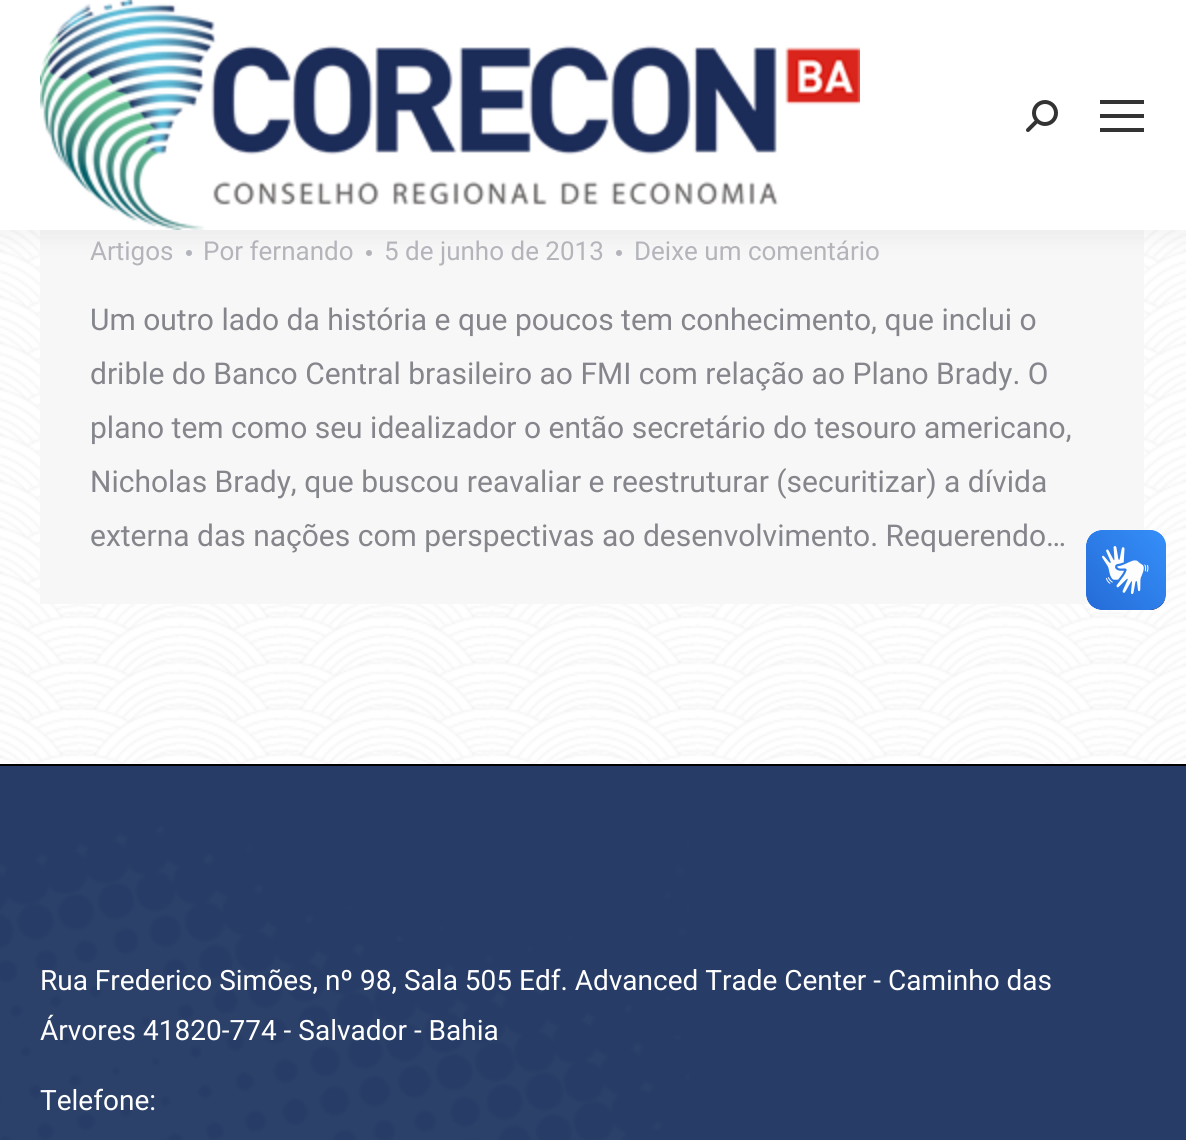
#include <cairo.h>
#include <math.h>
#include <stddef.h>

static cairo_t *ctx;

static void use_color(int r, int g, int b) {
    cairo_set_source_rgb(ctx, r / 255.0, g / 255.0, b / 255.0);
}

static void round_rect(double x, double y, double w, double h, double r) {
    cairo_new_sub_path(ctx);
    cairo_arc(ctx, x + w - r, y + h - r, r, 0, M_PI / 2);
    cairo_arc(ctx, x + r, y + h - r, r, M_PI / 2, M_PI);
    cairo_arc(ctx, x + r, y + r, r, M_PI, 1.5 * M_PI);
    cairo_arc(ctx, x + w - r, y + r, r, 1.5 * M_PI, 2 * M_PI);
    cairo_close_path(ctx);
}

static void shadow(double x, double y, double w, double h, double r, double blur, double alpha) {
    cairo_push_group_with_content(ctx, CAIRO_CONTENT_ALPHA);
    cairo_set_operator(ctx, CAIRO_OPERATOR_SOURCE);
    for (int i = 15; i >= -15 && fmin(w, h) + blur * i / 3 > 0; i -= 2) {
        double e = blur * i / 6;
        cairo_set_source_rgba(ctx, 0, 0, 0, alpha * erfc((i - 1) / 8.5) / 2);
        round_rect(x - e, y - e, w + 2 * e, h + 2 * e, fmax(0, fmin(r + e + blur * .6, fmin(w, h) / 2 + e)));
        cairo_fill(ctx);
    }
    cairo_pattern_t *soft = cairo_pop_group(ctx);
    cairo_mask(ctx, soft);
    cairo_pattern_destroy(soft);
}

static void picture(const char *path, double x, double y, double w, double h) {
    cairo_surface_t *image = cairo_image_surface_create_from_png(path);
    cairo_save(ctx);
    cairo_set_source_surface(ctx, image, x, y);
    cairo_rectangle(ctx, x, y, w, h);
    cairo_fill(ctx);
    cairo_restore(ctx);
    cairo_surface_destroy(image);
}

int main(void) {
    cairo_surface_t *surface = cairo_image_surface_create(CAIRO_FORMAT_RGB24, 1186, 1140);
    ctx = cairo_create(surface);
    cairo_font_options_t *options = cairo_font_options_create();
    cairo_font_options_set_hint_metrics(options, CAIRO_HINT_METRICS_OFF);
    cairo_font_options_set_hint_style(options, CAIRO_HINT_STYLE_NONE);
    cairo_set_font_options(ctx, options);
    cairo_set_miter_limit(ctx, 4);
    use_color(255, 255, 255);
    cairo_paint(ctx);
    picture("img1.png", 0, 230, 1186, 534);
    use_color(247, 247, 247);
    cairo_rectangle(ctx, 40, 230, 1104, 374);
    cairo_fill(ctx);
    use_color(180, 181, 187);
    cairo_arc(ctx, 189, 253, 3, 0, 2 * M_PI);
    cairo_fill(ctx);
    cairo_arc(ctx, 369, 253, 3, 0, 2 * M_PI);
    cairo_fill(ctx);
    cairo_arc(ctx, 619, 253, 3, 0, 2 * M_PI);
    cairo_fill(ctx);
    use_color(0, 0, 0);
    shadow(-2, -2, 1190, 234, 0, 15, 0.07);
    use_color(255, 255, 255);
    cairo_rectangle(ctx, 0, 0, 1186, 230);
    cairo_fill(ctx);
    picture("img2.png", 40, 0, 820, 230);
    picture("img3.png", 1026, 100, 32, 32);
    use_color(51, 51, 51);
    cairo_rectangle(ctx, 1100, 100, 44, 4);
    cairo_fill(ctx);
    cairo_rectangle(ctx, 1100, 114, 44, 4);
    cairo_fill(ctx);
    cairo_rectangle(ctx, 1100, 128, 44, 4);
    cairo_fill(ctx);
    cairo_select_font_face(ctx, "Roboto", CAIRO_FONT_SLANT_NORMAL, CAIRO_FONT_WEIGHT_NORMAL);
    cairo_set_font_size(ctx, 26);
    use_color(180, 181, 187);
    cairo_move_to(ctx, 90, 260);
    cairo_show_text(ctx, "Artigos");
    cairo_move_to(ctx, 203, 260);
    cairo_show_text(ctx, "Por fernando");
    cairo_move_to(ctx, 384, 260);
    cairo_show_text(ctx, "5 de junho de 2013");
    cairo_move_to(ctx, 634, 260);
    cairo_show_text(ctx, "Deixe um comentário");
    cairo_set_font_size(ctx, 30);
    use_color(133, 134, 140);
    cairo_move_to(ctx, 90, 330);
    cairo_show_text(ctx, "Um outro lado da história e que poucos tem conhecimento, que inclui o");
    cairo_move_to(ctx, 90, 384);
    cairo_show_text(ctx, "drible do Banco Central brasileiro ao FMI com relação ao Plano Brady. O");
    cairo_move_to(ctx, 90, 438);
    cairo_show_text(ctx, "plano tem como seu idealizador o então secretário do tesouro americano,");
    cairo_move_to(ctx, 90, 492);
    cairo_show_text(ctx, "Nicholas Brady, que buscou reavaliar e reestruturar (securitizar) a dívida");
    cairo_move_to(ctx, 90, 546);
    cairo_show_text(ctx, "externa das nações com perspectivas ao desenvolvimento. Requerendo…");
    use_color(39, 60, 102);
    cairo_rectangle(ctx, 0, 766, 1186, 374);
    cairo_fill(ctx);
    picture("img4.png", 0, 827, 689, 313);
    use_color(0, 0, 0);
    cairo_rectangle(ctx, 0, 764, 1186, 2);
    cairo_fill(ctx);
    picture("img5.png", 1086, 530, 80, 80);
    picture("img6.png", 1086, 530, 80, 80);
    cairo_set_font_size(ctx, 28);
    use_color(255, 255, 255);
    cairo_move_to(ctx, 40, 990);
    cairo_show_text(ctx, "Rua Frederico Simões, nº 98, Sala 505 Edf. Advanced Trade Center - Caminho das");
    cairo_move_to(ctx, 40, 1040);
    cairo_show_text(ctx, "Árvores 41820-774 - Salvador - Bahia");
    cairo_move_to(ctx, 40, 1110);
    cairo_show_text(ctx, "Telefone:");
    cairo_surface_write_to_png(surface, "result.png");
    cairo_font_options_destroy(options);
    cairo_destroy(ctx);
    cairo_surface_destroy(surface);
    return 0;
}
